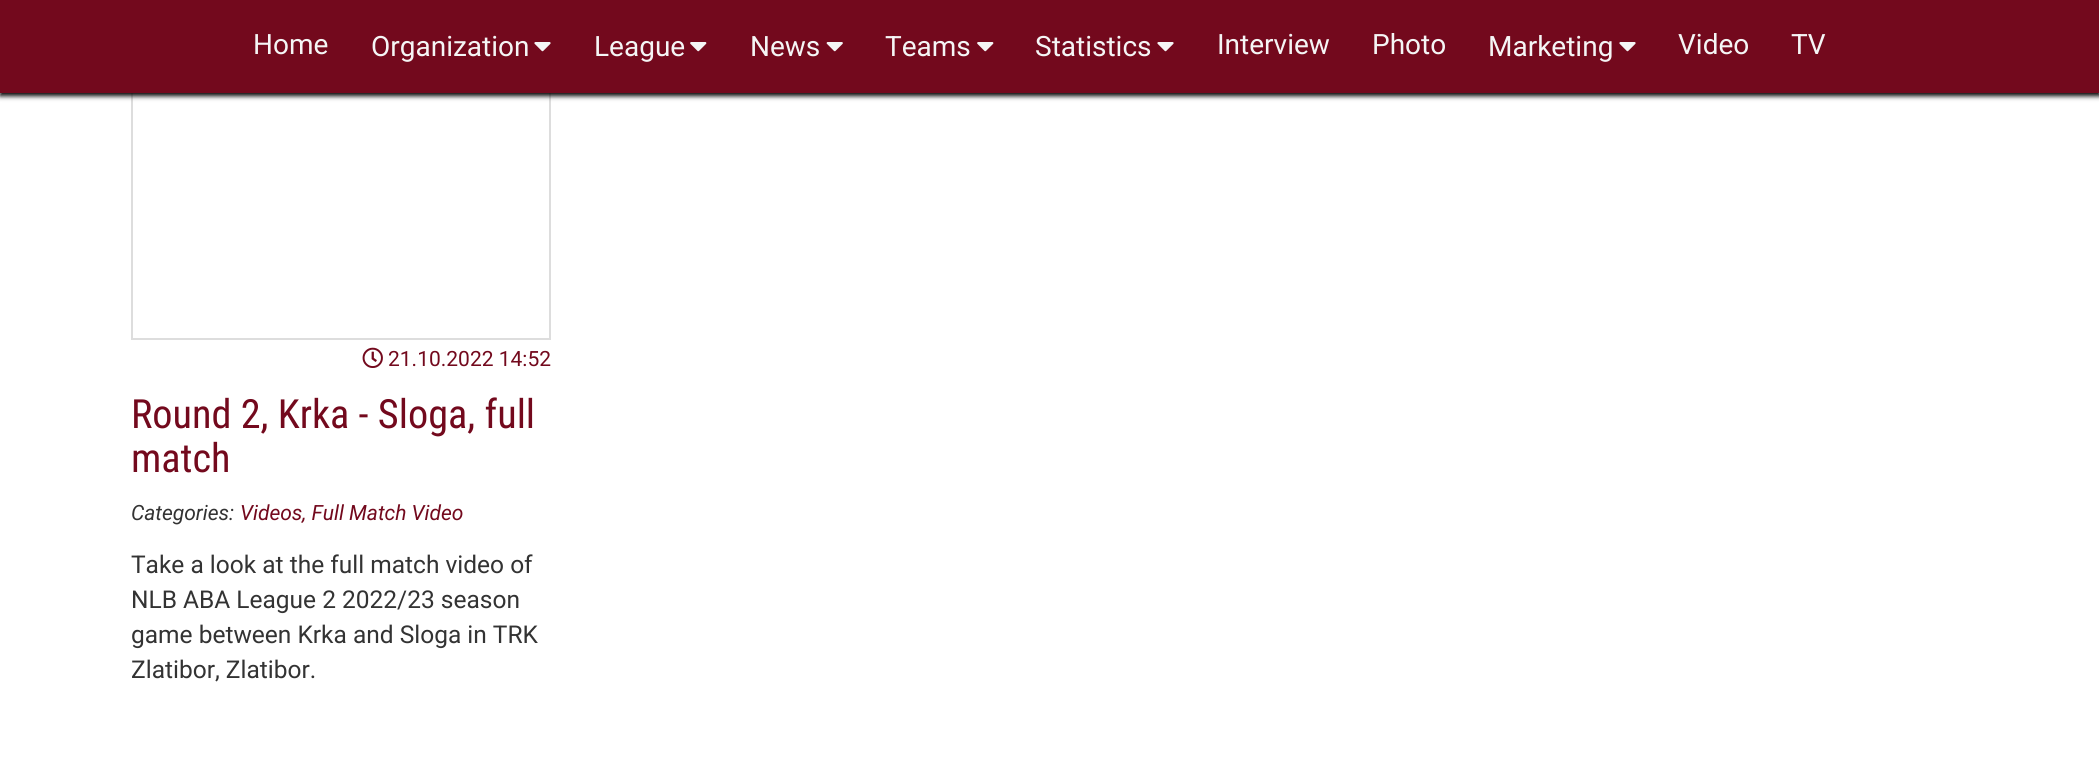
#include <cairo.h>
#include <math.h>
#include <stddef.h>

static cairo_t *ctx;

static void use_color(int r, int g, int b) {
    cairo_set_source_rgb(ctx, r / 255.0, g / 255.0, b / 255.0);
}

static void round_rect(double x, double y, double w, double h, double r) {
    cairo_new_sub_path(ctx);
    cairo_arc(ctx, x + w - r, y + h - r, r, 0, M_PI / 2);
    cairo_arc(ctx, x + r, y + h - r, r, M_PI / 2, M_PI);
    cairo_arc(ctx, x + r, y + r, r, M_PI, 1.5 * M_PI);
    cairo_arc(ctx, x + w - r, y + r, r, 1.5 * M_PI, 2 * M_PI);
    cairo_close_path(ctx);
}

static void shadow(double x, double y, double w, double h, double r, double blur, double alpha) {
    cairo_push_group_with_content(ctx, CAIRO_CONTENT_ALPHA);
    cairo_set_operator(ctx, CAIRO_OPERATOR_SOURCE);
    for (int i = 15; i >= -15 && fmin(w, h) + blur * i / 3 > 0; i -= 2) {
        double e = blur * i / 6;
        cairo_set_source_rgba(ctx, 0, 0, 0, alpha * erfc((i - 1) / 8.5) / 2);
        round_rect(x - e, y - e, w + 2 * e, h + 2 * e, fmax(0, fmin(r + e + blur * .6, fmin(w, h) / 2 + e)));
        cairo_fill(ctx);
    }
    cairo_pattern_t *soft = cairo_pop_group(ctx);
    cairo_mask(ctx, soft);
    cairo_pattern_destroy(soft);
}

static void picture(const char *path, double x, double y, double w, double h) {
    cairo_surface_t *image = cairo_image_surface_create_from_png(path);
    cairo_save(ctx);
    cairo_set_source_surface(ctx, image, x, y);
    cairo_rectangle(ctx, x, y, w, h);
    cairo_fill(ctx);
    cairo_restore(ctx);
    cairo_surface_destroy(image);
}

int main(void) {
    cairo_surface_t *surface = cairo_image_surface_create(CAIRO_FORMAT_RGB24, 2099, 772);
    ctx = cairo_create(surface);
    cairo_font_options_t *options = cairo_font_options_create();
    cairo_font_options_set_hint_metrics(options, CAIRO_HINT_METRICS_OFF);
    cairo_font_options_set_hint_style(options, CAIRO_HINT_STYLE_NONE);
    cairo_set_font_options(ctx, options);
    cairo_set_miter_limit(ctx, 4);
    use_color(255, 255, 255);
    cairo_paint(ctx);
    cairo_rectangle(ctx, 132, -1, 418, 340);
    use_color(221, 221, 221);
    cairo_stroke(ctx);
    use_color(0, 0, 0);
    shadow(0, 4, 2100, 92, 0, 2.5, 1);
    use_color(115, 9, 29);
    cairo_rectangle(ctx, 0, 0, 2099, 93);
    cairo_fill(ctx);
    cairo_select_font_face(ctx, "Roboto", CAIRO_FONT_SLANT_NORMAL, CAIRO_FONT_WEIGHT_NORMAL);
    cairo_set_font_size(ctx, 28);
    use_color(245, 245, 245);
    cairo_move_to(ctx, 253, 54);
    cairo_show_text(ctx, "Home");
    cairo_move_to(ctx, 371, 56);
    cairo_show_text(ctx, "Organization");
    picture("img1.png", 534, 42, 17, 10);
    cairo_move_to(ctx, 594, 56);
    cairo_show_text(ctx, "League");
    picture("img2.png", 690, 42, 17, 10);
    cairo_move_to(ctx, 750, 56);
    cairo_show_text(ctx, "News");
    picture("img3.png", 826, 42, 17, 10);
    cairo_move_to(ctx, 885, 56);
    cairo_show_text(ctx, "Teams");
    picture("img2.png", 977, 42, 17, 10);
    cairo_move_to(ctx, 1035, 56);
    cairo_show_text(ctx, "Statistics");
    picture("img1.png", 1157, 42, 17, 10);
    cairo_move_to(ctx, 1217, 54);
    cairo_show_text(ctx, "Interview");
    cairo_move_to(ctx, 1372, 54);
    cairo_show_text(ctx, "Photo");
    cairo_move_to(ctx, 1488, 56);
    cairo_show_text(ctx, "Marketing");
    picture("img1.png", 1619, 42, 17, 10);
    cairo_move_to(ctx, 1678, 54);
    cairo_show_text(ctx, "Video");
    cairo_move_to(ctx, 1791, 54);
    cairo_show_text(ctx, "TV");
    picture("img4.png", 362, 347, 21, 21);
    cairo_set_font_size(ctx, 21);
    use_color(115, 9, 29);
    cairo_move_to(ctx, 388, 366);
    cairo_show_text(ctx, "21.10.2022 14:52");
    cairo_select_font_face(ctx, "Roboto Condensed", CAIRO_FONT_SLANT_NORMAL, CAIRO_FONT_WEIGHT_NORMAL);
    cairo_set_font_size(ctx, 40.25);
    cairo_move_to(ctx, 131, 428);
    cairo_show_text(ctx, "Round 2, Krka - Sloga, full");
    cairo_move_to(ctx, 131, 472);
    cairo_show_text(ctx, "match");
    cairo_select_font_face(ctx, "Roboto", CAIRO_FONT_SLANT_ITALIC, CAIRO_FONT_WEIGHT_NORMAL);
    cairo_set_font_size(ctx, 21);
    use_color(51, 51, 51);
    cairo_move_to(ctx, 131, 520);
    cairo_show_text(ctx, "Categories:");
    use_color(115, 9, 29);
    cairo_move_to(ctx, 240, 520);
    cairo_show_text(ctx, "Videos, Full Match Video");
    cairo_select_font_face(ctx, "Roboto", CAIRO_FONT_SLANT_NORMAL, CAIRO_FONT_WEIGHT_NORMAL);
    cairo_set_font_size(ctx, 24.5);
    use_color(51, 51, 51);
    cairo_move_to(ctx, 131, 573);
    cairo_show_text(ctx, "Take a look at the full match video of");
    cairo_move_to(ctx, 131, 608);
    cairo_show_text(ctx, "NLB ABA League 2 2022/23 season");
    cairo_move_to(ctx, 131, 643);
    cairo_show_text(ctx, "game between Krka and Sloga in TRK");
    cairo_move_to(ctx, 131, 678);
    cairo_show_text(ctx, "Zlatibor, Zlatibor.");
    cairo_surface_write_to_png(surface, "result.png");
    cairo_font_options_destroy(options);
    cairo_destroy(ctx);
    cairo_surface_destroy(surface);
    return 0;
}
